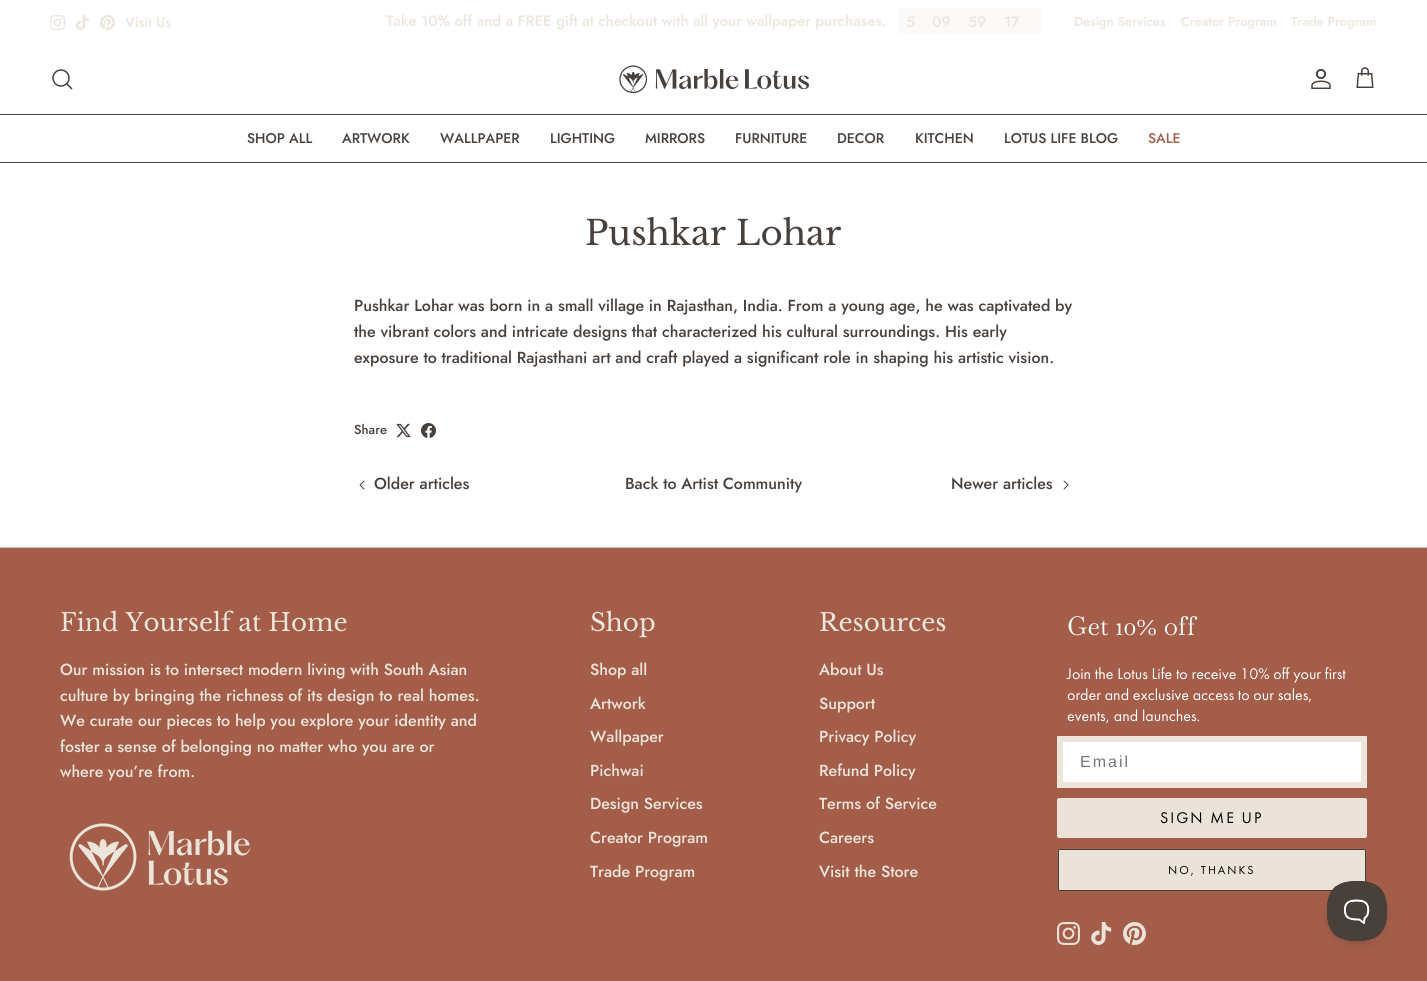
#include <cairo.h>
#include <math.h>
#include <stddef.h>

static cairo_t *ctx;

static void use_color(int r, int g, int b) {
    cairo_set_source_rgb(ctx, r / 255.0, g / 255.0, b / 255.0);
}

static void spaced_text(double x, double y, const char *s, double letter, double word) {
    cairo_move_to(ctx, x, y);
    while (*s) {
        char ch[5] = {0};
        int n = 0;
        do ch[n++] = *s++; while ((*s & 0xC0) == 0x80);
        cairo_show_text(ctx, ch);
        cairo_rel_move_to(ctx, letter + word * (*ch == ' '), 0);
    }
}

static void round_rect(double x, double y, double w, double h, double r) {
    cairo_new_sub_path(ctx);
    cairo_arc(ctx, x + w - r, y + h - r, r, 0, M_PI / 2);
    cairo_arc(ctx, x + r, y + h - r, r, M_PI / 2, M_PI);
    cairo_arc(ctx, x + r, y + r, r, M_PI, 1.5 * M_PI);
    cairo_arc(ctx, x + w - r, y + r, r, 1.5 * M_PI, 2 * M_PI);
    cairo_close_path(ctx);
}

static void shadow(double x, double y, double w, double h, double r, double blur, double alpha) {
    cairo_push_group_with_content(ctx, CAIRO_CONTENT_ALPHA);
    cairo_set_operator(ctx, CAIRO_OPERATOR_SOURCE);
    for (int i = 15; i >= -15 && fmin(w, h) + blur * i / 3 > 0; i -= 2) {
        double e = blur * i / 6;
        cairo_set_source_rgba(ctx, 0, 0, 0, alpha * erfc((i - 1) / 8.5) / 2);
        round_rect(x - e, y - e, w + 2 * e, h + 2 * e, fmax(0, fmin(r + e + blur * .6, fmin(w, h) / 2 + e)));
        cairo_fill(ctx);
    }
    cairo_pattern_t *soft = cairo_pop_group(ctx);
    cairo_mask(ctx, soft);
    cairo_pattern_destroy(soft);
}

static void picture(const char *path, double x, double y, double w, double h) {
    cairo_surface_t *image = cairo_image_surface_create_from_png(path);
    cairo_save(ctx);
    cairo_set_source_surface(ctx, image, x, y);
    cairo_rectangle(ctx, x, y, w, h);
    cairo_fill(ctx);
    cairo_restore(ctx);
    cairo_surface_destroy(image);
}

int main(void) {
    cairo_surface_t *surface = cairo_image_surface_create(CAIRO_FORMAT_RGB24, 1427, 981);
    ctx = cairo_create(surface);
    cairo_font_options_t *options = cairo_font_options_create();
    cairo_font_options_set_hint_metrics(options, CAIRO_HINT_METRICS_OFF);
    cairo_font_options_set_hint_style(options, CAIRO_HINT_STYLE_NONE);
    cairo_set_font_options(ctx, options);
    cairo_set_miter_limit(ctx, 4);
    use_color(255, 255, 255);
    cairo_paint(ctx);
    picture("img1.png", 50, 15, 15, 15);
    picture("img2.png", 75, 15, 14, 15);
    picture("img3.png", 100, 15, 15, 15);
    cairo_select_font_face(ctx, "Jost Medium", CAIRO_FONT_SLANT_NORMAL, CAIRO_FONT_WEIGHT_NORMAL);
    cairo_set_font_size(ctx, 14);
    use_color(237, 229, 219);
    cairo_move_to(ctx, 125, 27);
    cairo_show_text(ctx, "Visit Us");
    cairo_set_font_size(ctx, 15);
    cairo_move_to(ctx, 386, 26);
    cairo_show_text(ctx, "Take 10% off and a FREE gift at checkout with all your wallpaper purchases.");
    use_color(251, 250, 248);
    cairo_rectangle(ctx, 899, 8, 142, 26);
    cairo_fill(ctx);
    use_color(237, 229, 219);
    cairo_move_to(ctx, 906, 27);
    cairo_show_text(ctx, "5");
    cairo_move_to(ctx, 932, 27);
    cairo_show_text(ctx, "09");
    cairo_move_to(ctx, 968, 27);
    cairo_show_text(ctx, "59");
    cairo_move_to(ctx, 1004, 27);
    cairo_show_text(ctx, "17");
    cairo_set_font_size(ctx, 13);
    cairo_move_to(ctx, 1074, 26);
    cairo_show_text(ctx, "Design Services");
    cairo_move_to(ctx, 1181, 26);
    cairo_show_text(ctx, "Creator Program");
    cairo_move_to(ctx, 1291, 26);
    cairo_show_text(ctx, "Trade Program");
    use_color(72, 64, 59);
    cairo_rectangle(ctx, 0, 114, 1427, 1);
    cairo_fill(ctx);
    cairo_arc(ctx, 61, 78, 8, 0, 2 * M_PI);
    cairo_set_line_width(ctx, 1.5);
    cairo_stroke(ctx);
    cairo_new_path(ctx);
    cairo_move_to(ctx, 67, 84);
    cairo_line_to(ctx, 71.5, 88.5);
    cairo_set_line_cap(ctx, CAIRO_LINE_CAP_SQUARE);
    cairo_stroke(ctx);
    picture("img4.png", 619, 65, 190, 29);
    picture("img5.png", 1311, 69, 20, 20);
    picture("img6.png", 1356, 67, 18, 21);
    cairo_rectangle(ctx, 0, 162, 1427, 1);
    cairo_fill(ctx);
    cairo_set_font_size(ctx, 14);
    cairo_move_to(ctx, 247, 143);
    cairo_show_text(ctx, "SHOP ALL");
    cairo_move_to(ctx, 342, 143);
    cairo_show_text(ctx, "ARTWORK");
    cairo_move_to(ctx, 440, 143);
    cairo_show_text(ctx, "WALLPAPER");
    cairo_move_to(ctx, 550, 143);
    cairo_show_text(ctx, "LIGHTING");
    cairo_move_to(ctx, 645, 143);
    cairo_show_text(ctx, "MIRRORS");
    cairo_move_to(ctx, 735, 143);
    cairo_show_text(ctx, "FURNITURE");
    cairo_move_to(ctx, 837, 143);
    cairo_show_text(ctx, "DECOR");
    cairo_move_to(ctx, 915, 143);
    cairo_show_text(ctx, "KITCHEN");
    cairo_move_to(ctx, 1004, 143);
    cairo_show_text(ctx, "LOTUS LIFE BLOG");
    use_color(163, 93, 73);
    cairo_move_to(ctx, 1148, 143);
    cairo_show_text(ctx, "SALE");
    cairo_select_font_face(ctx, "Libre Baskerville", CAIRO_FONT_SLANT_NORMAL, CAIRO_FONT_WEIGHT_NORMAL);
    cairo_set_font_size(ctx, 34);
    use_color(72, 64, 59);
    cairo_move_to(ctx, 585, 245);
    cairo_show_text(ctx, "Pushkar Lohar");
    cairo_select_font_face(ctx, "Jost Medium", CAIRO_FONT_SLANT_NORMAL, CAIRO_FONT_WEIGHT_NORMAL);
    cairo_set_font_size(ctx, 16);
    cairo_move_to(ctx, 354, 311);
    cairo_show_text(ctx, "Pushkar Lohar was born in a small village in Rajasthan, India. From a young age, he was captivated by");
    cairo_move_to(ctx, 354, 337);
    cairo_show_text(ctx, "the vibrant colors and intricate designs that characterized his cultural surroundings. His early");
    cairo_move_to(ctx, 354, 363);
    cairo_show_text(ctx, "exposure to traditional Rajasthani art and craft played a significant role in shaping his artistic vision.");
    cairo_set_font_size(ctx, 13);
    cairo_move_to(ctx, 354, 434);
    cairo_show_text(ctx, "Share");
    picture("img7.png", 396, 423, 15, 15);
    picture("img8.png", 421, 423, 15, 15);
    cairo_set_font_size(ctx, 16);
    cairo_move_to(ctx, 374, 489);
    cairo_show_text(ctx, "Older articles");
    cairo_new_path(ctx);
    cairo_move_to(ctx, 364, 489);
    cairo_line_to(ctx, 360, 485);
    cairo_line_to(ctx, 364, 481);
    cairo_set_line_width(ctx, 1);
    cairo_set_line_cap(ctx, CAIRO_LINE_CAP_ROUND);
    cairo_set_line_join(ctx, CAIRO_LINE_JOIN_ROUND);
    cairo_stroke(ctx);
    cairo_move_to(ctx, 625, 489);
    cairo_show_text(ctx, "Back to Artist Community");
    cairo_move_to(ctx, 951, 489);
    cairo_show_text(ctx, "Newer articles");
    cairo_new_path(ctx);
    cairo_move_to(ctx, 1064, 489);
    cairo_line_to(ctx, 1068, 485);
    cairo_line_to(ctx, 1064, 481);
    cairo_stroke(ctx);
    use_color(163, 93, 73);
    cairo_rectangle(ctx, 0, 548, 1427, 433);
    cairo_fill(ctx);
    use_color(194, 198, 198);
    cairo_rectangle(ctx, 0, 547, 1427, 1);
    cairo_fill(ctx);
    cairo_select_font_face(ctx, "Libre Baskerville", CAIRO_FONT_SLANT_NORMAL, CAIRO_FONT_WEIGHT_NORMAL);
    cairo_set_font_size(ctx, 24.6);
    use_color(237, 229, 219);
    cairo_move_to(ctx, 60, 631);
    cairo_show_text(ctx, "Find Yourself at Home");
    cairo_select_font_face(ctx, "Jost Medium", CAIRO_FONT_SLANT_NORMAL, CAIRO_FONT_WEIGHT_NORMAL);
    cairo_set_font_size(ctx, 16);
    cairo_move_to(ctx, 60, 675);
    cairo_show_text(ctx, "Our mission is to intersect modern living with South Asian");
    cairo_move_to(ctx, 60, 701);
    cairo_show_text(ctx, "culture by bringing the richness of its design to real homes.");
    cairo_move_to(ctx, 60, 726);
    cairo_show_text(ctx, "We curate our pieces to help you explore your identity and");
    cairo_move_to(ctx, 60, 752);
    cairo_show_text(ctx, "foster a sense of belonging no matter who you are or");
    cairo_move_to(ctx, 60, 777);
    cairo_show_text(ctx, "where you’re from.");
    picture("img9.png", 69, 823, 182, 68);
    cairo_select_font_face(ctx, "Libre Baskerville", CAIRO_FONT_SLANT_NORMAL, CAIRO_FONT_WEIGHT_NORMAL);
    cairo_set_font_size(ctx, 24.6);
    cairo_move_to(ctx, 590, 631);
    cairo_show_text(ctx, "Shop");
    cairo_select_font_face(ctx, "Jost Medium", CAIRO_FONT_SLANT_NORMAL, CAIRO_FONT_WEIGHT_NORMAL);
    cairo_set_font_size(ctx, 16);
    cairo_move_to(ctx, 590, 675);
    cairo_show_text(ctx, "Shop all");
    cairo_move_to(ctx, 590, 709);
    cairo_show_text(ctx, "Artwork");
    cairo_move_to(ctx, 590, 742);
    cairo_show_text(ctx, "Wallpaper");
    cairo_move_to(ctx, 590, 776);
    cairo_show_text(ctx, "Pichwai");
    cairo_move_to(ctx, 590, 809);
    cairo_show_text(ctx, "Design Services");
    cairo_move_to(ctx, 590, 843);
    cairo_show_text(ctx, "Creator Program");
    cairo_move_to(ctx, 590, 877);
    cairo_show_text(ctx, "Trade Program");
    cairo_select_font_face(ctx, "Libre Baskerville", CAIRO_FONT_SLANT_NORMAL, CAIRO_FONT_WEIGHT_NORMAL);
    cairo_set_font_size(ctx, 24.6);
    cairo_move_to(ctx, 819, 631);
    cairo_show_text(ctx, "Resources");
    cairo_select_font_face(ctx, "Jost Medium", CAIRO_FONT_SLANT_NORMAL, CAIRO_FONT_WEIGHT_NORMAL);
    cairo_set_font_size(ctx, 16);
    cairo_move_to(ctx, 819, 675);
    cairo_show_text(ctx, "About Us");
    cairo_move_to(ctx, 819, 709);
    cairo_show_text(ctx, "Support");
    cairo_move_to(ctx, 819, 742);
    cairo_show_text(ctx, "Privacy Policy");
    cairo_move_to(ctx, 819, 776);
    cairo_show_text(ctx, "Refund Policy");
    cairo_move_to(ctx, 819, 809);
    cairo_show_text(ctx, "Terms of Service");
    cairo_move_to(ctx, 819, 843);
    cairo_show_text(ctx, "Careers");
    cairo_move_to(ctx, 819, 877);
    cairo_show_text(ctx, "Visit the Store");
    cairo_select_font_face(ctx, "Baskervville", CAIRO_FONT_SLANT_NORMAL, CAIRO_FONT_WEIGHT_NORMAL);
    cairo_set_font_size(ctx, 26);
    use_color(255, 255, 255);
    cairo_move_to(ctx, 1067, 635);
    cairo_show_text(ctx, "Get 10% off");
    cairo_select_font_face(ctx, "Futura PT", CAIRO_FONT_SLANT_NORMAL, CAIRO_FONT_WEIGHT_NORMAL);
    cairo_set_font_size(ctx, 16);
    cairo_move_to(ctx, 1067, 679);
    cairo_show_text(ctx, "Join the Lotus Life to receive 10% off your first");
    cairo_move_to(ctx, 1067, 700);
    cairo_show_text(ctx, "order and exclusive access to our sales,");
    cairo_move_to(ctx, 1067, 721);
    cairo_show_text(ctx, "events, and launches.");
    use_color(237, 229, 219);
    cairo_rectangle(ctx, 1057, 736, 310, 52);
    cairo_fill(ctx);
    use_color(255, 255, 255);
    cairo_rectangle(ctx, 1063, 742, 298, 40);
    cairo_fill(ctx);
    cairo_select_font_face(ctx, "Liberation Sans", CAIRO_FONT_SLANT_NORMAL, CAIRO_FONT_WEIGHT_NORMAL);
    use_color(118, 118, 118);
    spaced_text(1080, 767, "Email", 2, 0);
    use_color(235, 227, 217);
    round_rect(1057, 798, 310, 40, 2);
    cairo_fill(ctx);
    cairo_select_font_face(ctx, "Futura PT", CAIRO_FONT_SLANT_NORMAL, CAIRO_FONT_WEIGHT_NORMAL);
    use_color(0, 0, 0);
    spaced_text(1160, 823, "SIGN ME UP", 2, 0);
    use_color(235, 227, 217);
    round_rect(1058.5, 849.5, 307, 41, 1.5);
    cairo_fill_preserve(ctx);
    use_color(72, 64, 59);
    cairo_set_line_cap(ctx, CAIRO_LINE_CAP_BUTT);
    cairo_set_line_join(ctx, CAIRO_LINE_JOIN_MITER);
    cairo_stroke(ctx);
    cairo_set_font_size(ctx, 12);
    use_color(0, 0, 0);
    spaced_text(1168, 874, "NO, THANKS", 2, 0);
    picture("img10.png", 1057, 922, 23, 23);
    picture("img11.png", 1091, 922, 21, 23);
    picture("img12.png", 1123, 922, 23, 23);
    use_color(0, 0, 0);
    shadow(1327, 885, 60, 60, 30, 3.5, 0.1);
    picture("img13.png", 1327, 881, 60, 60);
    cairo_surface_write_to_png(surface, "result.png");
    cairo_font_options_destroy(options);
    cairo_destroy(ctx);
    cairo_surface_destroy(surface);
    return 0;
}
